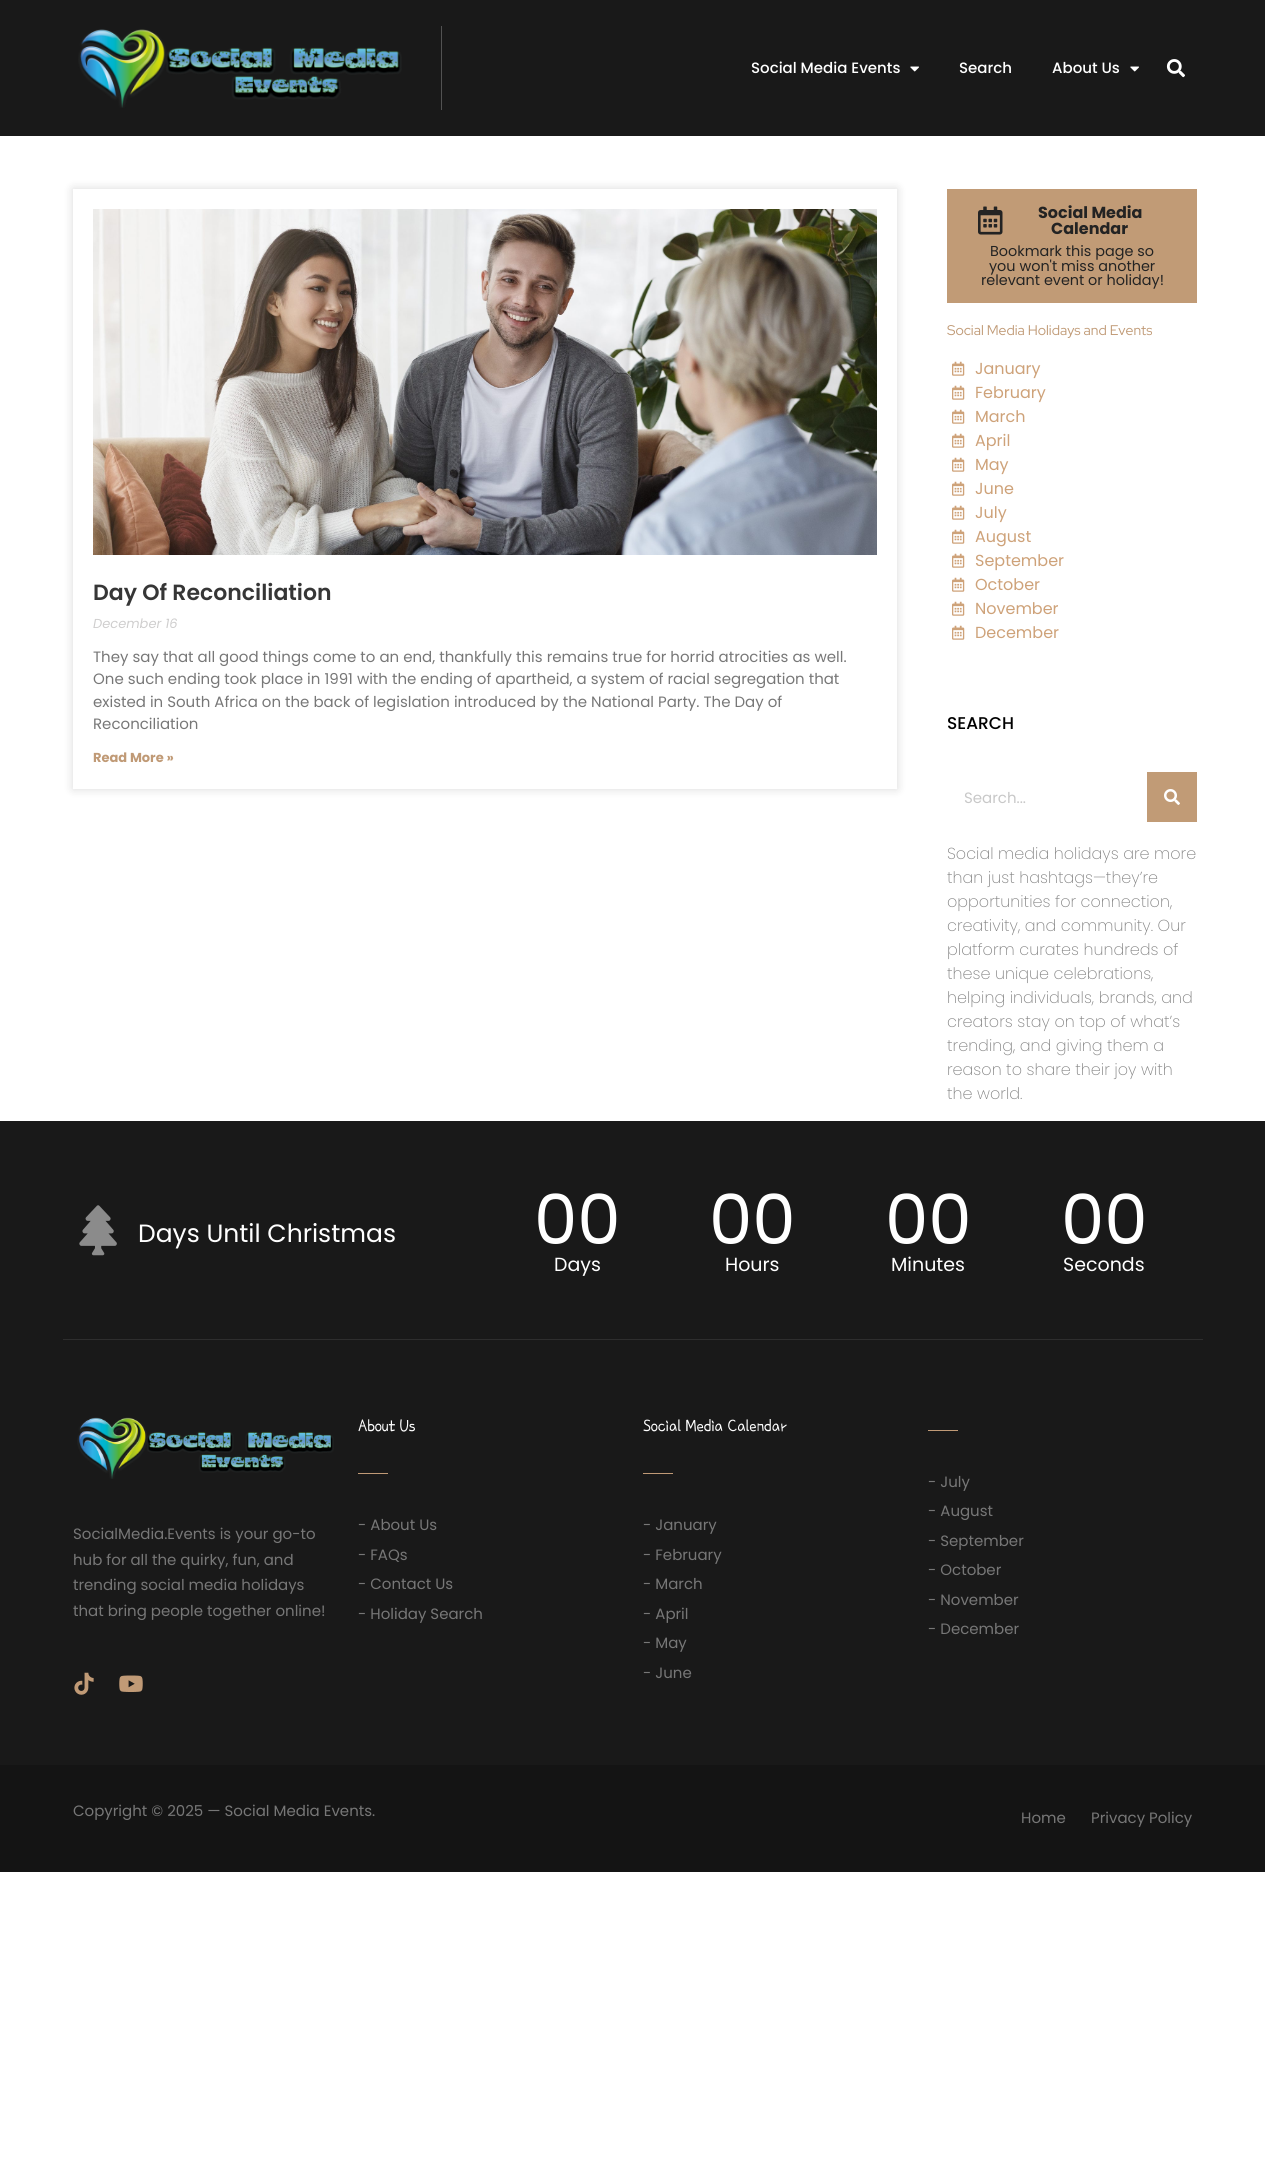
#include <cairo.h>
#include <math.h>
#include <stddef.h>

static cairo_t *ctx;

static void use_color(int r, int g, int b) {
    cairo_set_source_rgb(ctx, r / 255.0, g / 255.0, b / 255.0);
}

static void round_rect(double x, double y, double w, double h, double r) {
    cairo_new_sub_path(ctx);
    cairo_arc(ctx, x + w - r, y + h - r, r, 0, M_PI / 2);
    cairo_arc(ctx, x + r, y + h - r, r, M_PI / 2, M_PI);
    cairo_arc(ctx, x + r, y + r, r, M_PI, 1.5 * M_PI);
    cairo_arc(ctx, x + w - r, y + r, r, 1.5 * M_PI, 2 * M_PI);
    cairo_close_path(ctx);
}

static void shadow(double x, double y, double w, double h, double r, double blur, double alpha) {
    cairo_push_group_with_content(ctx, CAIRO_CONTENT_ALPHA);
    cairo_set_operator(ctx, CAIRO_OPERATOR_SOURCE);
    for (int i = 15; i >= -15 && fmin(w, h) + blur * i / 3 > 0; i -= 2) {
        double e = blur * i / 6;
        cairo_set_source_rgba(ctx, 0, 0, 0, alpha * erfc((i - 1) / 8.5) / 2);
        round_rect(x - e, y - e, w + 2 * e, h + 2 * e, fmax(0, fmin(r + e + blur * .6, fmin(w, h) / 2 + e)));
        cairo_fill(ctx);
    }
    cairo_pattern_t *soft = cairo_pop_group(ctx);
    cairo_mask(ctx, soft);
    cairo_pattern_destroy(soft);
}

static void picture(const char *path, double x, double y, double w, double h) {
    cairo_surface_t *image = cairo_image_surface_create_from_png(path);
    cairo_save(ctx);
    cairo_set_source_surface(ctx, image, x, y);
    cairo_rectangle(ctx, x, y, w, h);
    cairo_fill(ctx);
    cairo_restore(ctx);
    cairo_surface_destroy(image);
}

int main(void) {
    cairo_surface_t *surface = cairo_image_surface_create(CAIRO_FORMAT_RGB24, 1265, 2160);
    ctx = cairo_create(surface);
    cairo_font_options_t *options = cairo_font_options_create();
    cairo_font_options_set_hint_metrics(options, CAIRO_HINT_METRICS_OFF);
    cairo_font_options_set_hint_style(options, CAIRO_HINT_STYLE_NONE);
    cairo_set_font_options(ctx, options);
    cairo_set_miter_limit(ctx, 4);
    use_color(255, 255, 255);
    cairo_paint(ctx);
    use_color(25, 25, 25);
    cairo_rectangle(ctx, 0, 0, 1265, 136);
    cairo_fill(ctx);
    use_color(82, 82, 82);
    cairo_rectangle(ctx, 441, 26, 1, 84);
    cairo_fill(ctx);
    picture("img1.png", 78, 29, 324, 79);
    cairo_select_font_face(ctx, "Poppins Medium", CAIRO_FONT_SLANT_NORMAL, CAIRO_FONT_WEIGHT_NORMAL);
    cairo_set_font_size(ctx, 15);
    use_color(255, 255, 255);
    cairo_move_to(ctx, 751, 73);
    cairo_show_text(ctx, "Social Media Events");
    picture("img2.png", 910, 66, 9, 6);
    cairo_move_to(ctx, 959, 73);
    cairo_show_text(ctx, "Search");
    cairo_move_to(ctx, 1052, 73);
    cairo_show_text(ctx, "About Us");
    picture("img2.png", 1130, 66, 9, 6);
    picture("img3.png", 1166, 59, 19, 19);
    cairo_save(ctx);
    cairo_set_fill_rule(ctx, CAIRO_FILL_RULE_EVEN_ODD);
    cairo_new_path(ctx);
    cairo_move_to(ctx, 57, 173);
    cairo_line_to(ctx, 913, 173);
    cairo_line_to(ctx, 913, 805);
    cairo_line_to(ctx, 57, 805);
    cairo_close_path(ctx);
    cairo_move_to(ctx, 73, 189);
    cairo_line_to(ctx, 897, 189);
    cairo_line_to(ctx, 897, 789);
    cairo_line_to(ctx, 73, 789);
    cairo_close_path(ctx);
    cairo_clip(ctx);
    use_color(0, 0, 0);
    shadow(73, 189, 824, 600, 0, 5, 0.15);
    cairo_restore(ctx);
    picture("img4.png", 93, 209, 784, 346);
    cairo_select_font_face(ctx, "Poppins SemiBold", CAIRO_FONT_SLANT_NORMAL, CAIRO_FONT_WEIGHT_NORMAL);
    cairo_set_font_size(ctx, 22);
    use_color(54, 54, 54);
    cairo_move_to(ctx, 93, 600);
    cairo_show_text(ctx, "Day Of Reconciliation");
    cairo_select_font_face(ctx, "Poppins", CAIRO_FONT_SLANT_ITALIC, CAIRO_FONT_WEIGHT_NORMAL);
    cairo_set_font_size(ctx, 13);
    use_color(207, 206, 206);
    cairo_move_to(ctx, 93, 628);
    cairo_show_text(ctx, "December 16");
    cairo_select_font_face(ctx, "Poppins", CAIRO_FONT_SLANT_NORMAL, CAIRO_FONT_WEIGHT_NORMAL);
    cairo_set_font_size(ctx, 15);
    use_color(119, 119, 119);
    cairo_move_to(ctx, 93, 662);
    cairo_show_text(ctx, "They say that all good things come to an end, thankfully this remains true for horrid atrocities as well.");
    cairo_move_to(ctx, 93, 684);
    cairo_show_text(ctx, "One such ending took place in 1991 with the ending of apartheid, a system of racial segregation that");
    cairo_move_to(ctx, 93, 707);
    cairo_show_text(ctx, "existed in South Africa on the back of legislation introduced by the National Party. The Day of");
    cairo_move_to(ctx, 93, 729);
    cairo_show_text(ctx, "Reconciliation");
    cairo_select_font_face(ctx, "Poppins", CAIRO_FONT_SLANT_NORMAL, CAIRO_FONT_WEIGHT_BOLD);
    cairo_set_font_size(ctx, 13);
    use_color(192, 154, 118);
    cairo_move_to(ctx, 93, 762);
    cairo_show_text(ctx, "Read More »");
    use_color(193, 155, 118);
    cairo_rectangle(ctx, 947, 189, 250, 114);
    cairo_fill(ctx);
    picture("img5.png", 978, 206, 25, 29);
    cairo_set_font_size(ctx, 16);
    use_color(35, 35, 35);
    cairo_move_to(ctx, 1038, 218);
    cairo_show_text(ctx, "Social Media");
    cairo_move_to(ctx, 1051, 234);
    cairo_show_text(ctx, "Calendar");
    cairo_select_font_face(ctx, "Poppins", CAIRO_FONT_SLANT_NORMAL, CAIRO_FONT_WEIGHT_NORMAL);
    cairo_set_font_size(ctx, 14.4);
    cairo_move_to(ctx, 990, 256);
    cairo_show_text(ctx, "Bookmark this page so");
    cairo_move_to(ctx, 989, 271);
    cairo_show_text(ctx, "you won't miss another");
    cairo_move_to(ctx, 981, 285);
    cairo_show_text(ctx, "relevant event or holiday!");
    cairo_select_font_face(ctx, "Red Hat Display", CAIRO_FONT_SLANT_NORMAL, CAIRO_FONT_WEIGHT_NORMAL);
    cairo_set_font_size(ctx, 14);
    use_color(192, 154, 118);
    cairo_move_to(ctx, 947, 335);
    cairo_show_text(ctx, "Social Media Holidays and Events");
    picture("img6.png", 952, 361, 13, 15);
    cairo_select_font_face(ctx, "Poppins", CAIRO_FONT_SLANT_NORMAL, CAIRO_FONT_WEIGHT_NORMAL);
    cairo_set_font_size(ctx, 16);
    use_color(206, 162, 121);
    cairo_move_to(ctx, 975, 374);
    cairo_show_text(ctx, "January");
    picture("img6.png", 952, 385, 13, 15);
    cairo_move_to(ctx, 975, 398);
    cairo_show_text(ctx, "February");
    picture("img6.png", 952, 409, 13, 15);
    cairo_move_to(ctx, 975, 422);
    cairo_show_text(ctx, "March");
    picture("img6.png", 952, 433, 13, 15);
    cairo_move_to(ctx, 975, 446);
    cairo_show_text(ctx, "April");
    picture("img6.png", 952, 457, 13, 15);
    cairo_move_to(ctx, 975, 470);
    cairo_show_text(ctx, "May");
    picture("img6.png", 952, 481, 13, 15);
    cairo_move_to(ctx, 975, 494);
    cairo_show_text(ctx, "June");
    picture("img6.png", 952, 505, 13, 15);
    cairo_move_to(ctx, 975, 518);
    cairo_show_text(ctx, "July");
    picture("img6.png", 952, 529, 13, 15);
    cairo_move_to(ctx, 975, 542);
    cairo_show_text(ctx, "August");
    picture("img6.png", 952, 553, 13, 15);
    cairo_move_to(ctx, 975, 566);
    cairo_show_text(ctx, "September");
    picture("img6.png", 952, 577, 13, 15);
    cairo_move_to(ctx, 975, 590);
    cairo_show_text(ctx, "October");
    picture("img6.png", 952, 601, 13, 15);
    cairo_move_to(ctx, 975, 614);
    cairo_show_text(ctx, "November");
    picture("img6.png", 952, 625, 13, 15);
    cairo_move_to(ctx, 975, 638);
    cairo_show_text(ctx, "December");
    cairo_select_font_face(ctx, "Poppins Medium", CAIRO_FONT_SLANT_NORMAL, CAIRO_FONT_WEIGHT_NORMAL);
    cairo_set_font_size(ctx, 17);
    use_color(0, 0, 0);
    cairo_move_to(ctx, 947, 729);
    cairo_show_text(ctx, "SEARCH");
    cairo_select_font_face(ctx, "Poppins", CAIRO_FONT_SLANT_NORMAL, CAIRO_FONT_WEIGHT_NORMAL);
    cairo_set_font_size(ctx, 15);
    use_color(200, 200, 200);
    cairo_move_to(ctx, 964, 803);
    cairo_show_text(ctx, "Search...");
    use_color(193, 155, 118);
    cairo_rectangle(ctx, 1147, 772, 50, 50);
    cairo_fill(ctx);
    picture("img7.png", 1164, 789, 16, 16);
    cairo_select_font_face(ctx, "Poppins ExtraLight", CAIRO_FONT_SLANT_NORMAL, CAIRO_FONT_WEIGHT_NORMAL);
    cairo_set_font_size(ctx, 16);
    use_color(132, 132, 132);
    cairo_move_to(ctx, 947, 859);
    cairo_show_text(ctx, "Social media holidays are more");
    cairo_move_to(ctx, 947, 883);
    cairo_show_text(ctx, "than just hashtags—they’re");
    cairo_move_to(ctx, 947, 907);
    cairo_show_text(ctx, "opportunities for connection,");
    cairo_move_to(ctx, 947, 931);
    cairo_show_text(ctx, "creativity, and community. Our");
    cairo_move_to(ctx, 947, 955);
    cairo_show_text(ctx, "platform curates hundreds of");
    cairo_move_to(ctx, 947, 979);
    cairo_show_text(ctx, "these unique celebrations,");
    cairo_move_to(ctx, 947, 1003);
    cairo_show_text(ctx, "helping individuals, brands, and");
    cairo_move_to(ctx, 947, 1027);
    cairo_show_text(ctx, "creators stay on top of what’s");
    cairo_move_to(ctx, 947, 1051);
    cairo_show_text(ctx, "trending, and giving them a");
    cairo_move_to(ctx, 947, 1075);
    cairo_show_text(ctx, "reason to share their joy with");
    cairo_move_to(ctx, 947, 1099);
    cairo_show_text(ctx, "the world.");
    use_color(25, 25, 25);
    cairo_rectangle(ctx, 0, 1121, 1265, 644);
    cairo_fill(ctx);
    use_color(46, 46, 46);
    cairo_rectangle(ctx, 63, 1339, 1140, 1);
    cairo_fill(ctx);
    picture("img8.png", 79, 1205, 38, 51);
    cairo_select_font_face(ctx, "Poppins", CAIRO_FONT_SLANT_NORMAL, CAIRO_FONT_WEIGHT_NORMAL);
    cairo_set_font_size(ctx, 25);
    use_color(255, 255, 255);
    cairo_move_to(ctx, 138, 1242);
    cairo_show_text(ctx, "Days Until Christmas");
    cairo_set_font_size(ctx, 69);
    cairo_move_to(ctx, 534, 1244);
    cairo_show_text(ctx, "00");
    cairo_set_font_size(ctx, 19);
    cairo_move_to(ctx, 554, 1271);
    cairo_show_text(ctx, "Days");
    cairo_set_font_size(ctx, 69);
    cairo_move_to(ctx, 709, 1244);
    cairo_show_text(ctx, "00");
    cairo_set_font_size(ctx, 19);
    cairo_move_to(ctx, 725, 1271);
    cairo_show_text(ctx, "Hours");
    cairo_set_font_size(ctx, 69);
    cairo_move_to(ctx, 885, 1244);
    cairo_show_text(ctx, "00");
    cairo_set_font_size(ctx, 19);
    cairo_move_to(ctx, 891, 1271);
    cairo_show_text(ctx, "Minutes");
    cairo_set_font_size(ctx, 69);
    cairo_move_to(ctx, 1061, 1244);
    cairo_show_text(ctx, "00");
    cairo_set_font_size(ctx, 19);
    cairo_move_to(ctx, 1063, 1271);
    cairo_show_text(ctx, "Seconds");
    picture("img9.png", 77, 1417, 257, 62);
    cairo_set_font_size(ctx, 15);
    use_color(119, 119, 119);
    cairo_move_to(ctx, 73, 1539);
    cairo_show_text(ctx, "SocialMedia.Events is your go-to");
    cairo_move_to(ctx, 73, 1565);
    cairo_show_text(ctx, "hub for all the quirky, fun, and");
    cairo_move_to(ctx, 73, 1590);
    cairo_show_text(ctx, "trending social media holidays");
    cairo_move_to(ctx, 73, 1616);
    cairo_show_text(ctx, "that bring people together online!");
    picture("img10.png", 74, 1672, 20, 23);
    picture("img11.png", 119, 1675, 24, 17);
    cairo_select_font_face(ctx, "Poor Story", CAIRO_FONT_SLANT_NORMAL, CAIRO_FONT_WEIGHT_NORMAL);
    cairo_set_font_size(ctx, 18);
    use_color(255, 255, 255);
    cairo_move_to(ctx, 358, 1431);
    cairo_show_text(ctx, "About Us");
    use_color(192, 154, 118);
    cairo_rectangle(ctx, 358, 1473, 30, 1);
    cairo_fill(ctx);
    cairo_select_font_face(ctx, "Poppins", CAIRO_FONT_SLANT_NORMAL, CAIRO_FONT_WEIGHT_NORMAL);
    cairo_set_font_size(ctx, 15);
    use_color(119, 119, 119);
    cairo_move_to(ctx, 358, 1530);
    cairo_show_text(ctx, "- About Us");
    cairo_move_to(ctx, 358, 1560);
    cairo_show_text(ctx, "- FAQs");
    cairo_move_to(ctx, 358, 1589);
    cairo_show_text(ctx, "- Contact Us");
    cairo_move_to(ctx, 358, 1619);
    cairo_show_text(ctx, "- Holiday Search");
    cairo_select_font_face(ctx, "Poor Story", CAIRO_FONT_SLANT_NORMAL, CAIRO_FONT_WEIGHT_NORMAL);
    cairo_set_font_size(ctx, 18);
    use_color(255, 255, 255);
    cairo_move_to(ctx, 643, 1431);
    cairo_show_text(ctx, "Social Media Calendar");
    use_color(192, 154, 118);
    cairo_rectangle(ctx, 643, 1473, 30, 1);
    cairo_fill(ctx);
    cairo_select_font_face(ctx, "Poppins", CAIRO_FONT_SLANT_NORMAL, CAIRO_FONT_WEIGHT_NORMAL);
    cairo_set_font_size(ctx, 15);
    use_color(119, 119, 119);
    cairo_move_to(ctx, 643, 1530);
    cairo_show_text(ctx, "- January");
    cairo_move_to(ctx, 643, 1560);
    cairo_show_text(ctx, "- February");
    cairo_move_to(ctx, 643, 1589);
    cairo_show_text(ctx, "- March");
    cairo_move_to(ctx, 643, 1619);
    cairo_show_text(ctx, "- April");
    cairo_move_to(ctx, 643, 1648);
    cairo_show_text(ctx, "- May");
    cairo_move_to(ctx, 643, 1678);
    cairo_show_text(ctx, "- June");
    use_color(192, 154, 118);
    cairo_rectangle(ctx, 928, 1430, 30, 1);
    cairo_fill(ctx);
    use_color(119, 119, 119);
    cairo_move_to(ctx, 928, 1487);
    cairo_show_text(ctx, "- July");
    cairo_move_to(ctx, 928, 1516);
    cairo_show_text(ctx, "- August");
    cairo_move_to(ctx, 928, 1546);
    cairo_show_text(ctx, "- September");
    cairo_move_to(ctx, 928, 1575);
    cairo_show_text(ctx, "- October");
    cairo_move_to(ctx, 928, 1605);
    cairo_show_text(ctx, "- November");
    cairo_move_to(ctx, 928, 1634);
    cairo_show_text(ctx, "- December");
    use_color(20, 20, 20);
    cairo_rectangle(ctx, 0, 1765, 1265, 107);
    cairo_fill(ctx);
    use_color(119, 119, 119);
    cairo_move_to(ctx, 73, 1816);
    cairo_show_text(ctx, "Copyright © 2025 — Social Media Events.");
    cairo_move_to(ctx, 1021, 1823);
    cairo_show_text(ctx, "Home");
    cairo_move_to(ctx, 1091, 1823);
    cairo_show_text(ctx, "Privacy Policy");
    cairo_surface_write_to_png(surface, "result.png");
    cairo_font_options_destroy(options);
    cairo_destroy(ctx);
    cairo_surface_destroy(surface);
    return 0;
}
